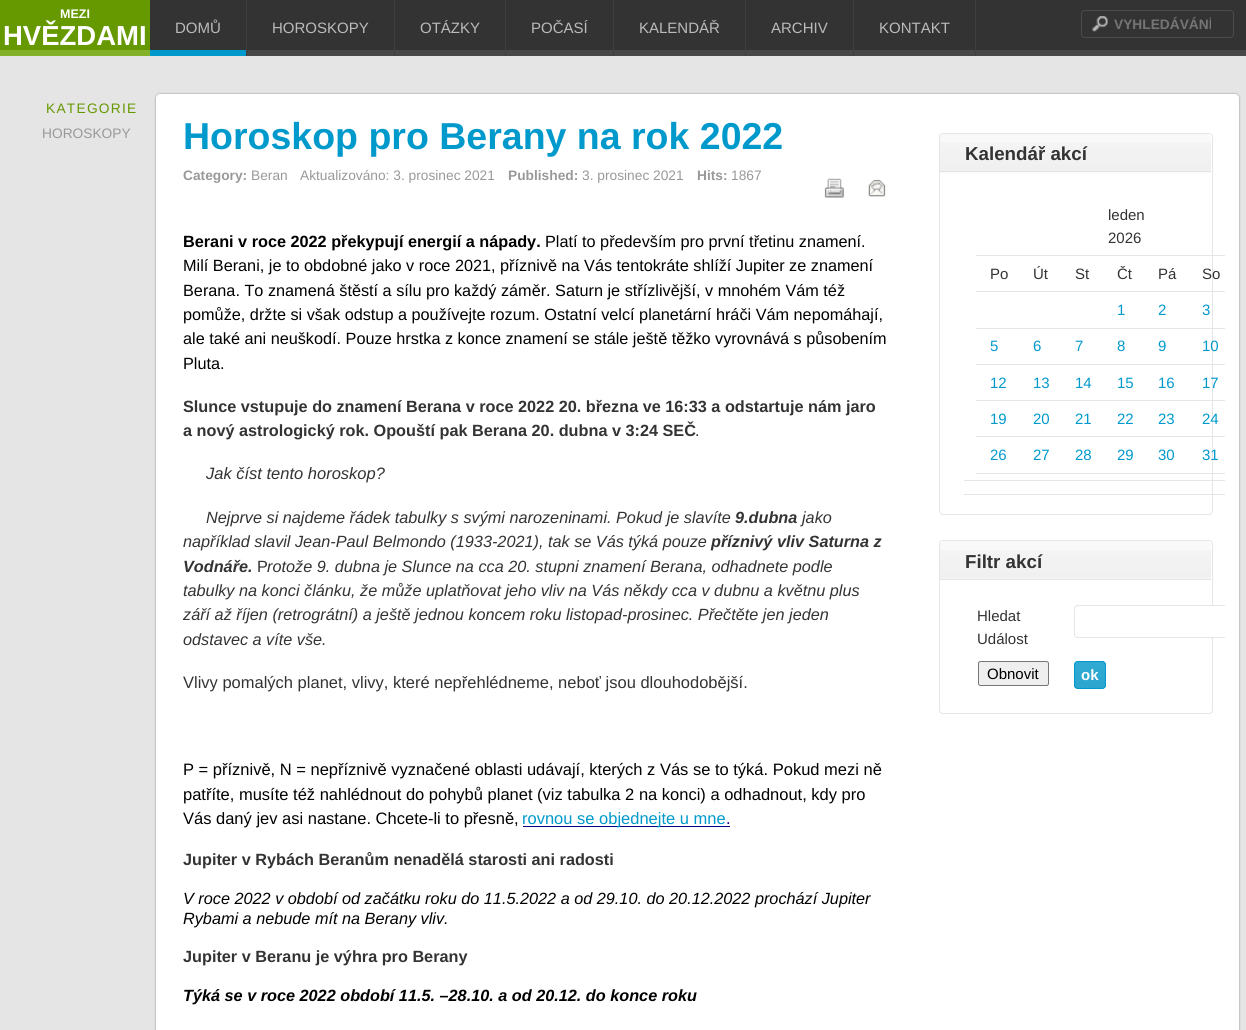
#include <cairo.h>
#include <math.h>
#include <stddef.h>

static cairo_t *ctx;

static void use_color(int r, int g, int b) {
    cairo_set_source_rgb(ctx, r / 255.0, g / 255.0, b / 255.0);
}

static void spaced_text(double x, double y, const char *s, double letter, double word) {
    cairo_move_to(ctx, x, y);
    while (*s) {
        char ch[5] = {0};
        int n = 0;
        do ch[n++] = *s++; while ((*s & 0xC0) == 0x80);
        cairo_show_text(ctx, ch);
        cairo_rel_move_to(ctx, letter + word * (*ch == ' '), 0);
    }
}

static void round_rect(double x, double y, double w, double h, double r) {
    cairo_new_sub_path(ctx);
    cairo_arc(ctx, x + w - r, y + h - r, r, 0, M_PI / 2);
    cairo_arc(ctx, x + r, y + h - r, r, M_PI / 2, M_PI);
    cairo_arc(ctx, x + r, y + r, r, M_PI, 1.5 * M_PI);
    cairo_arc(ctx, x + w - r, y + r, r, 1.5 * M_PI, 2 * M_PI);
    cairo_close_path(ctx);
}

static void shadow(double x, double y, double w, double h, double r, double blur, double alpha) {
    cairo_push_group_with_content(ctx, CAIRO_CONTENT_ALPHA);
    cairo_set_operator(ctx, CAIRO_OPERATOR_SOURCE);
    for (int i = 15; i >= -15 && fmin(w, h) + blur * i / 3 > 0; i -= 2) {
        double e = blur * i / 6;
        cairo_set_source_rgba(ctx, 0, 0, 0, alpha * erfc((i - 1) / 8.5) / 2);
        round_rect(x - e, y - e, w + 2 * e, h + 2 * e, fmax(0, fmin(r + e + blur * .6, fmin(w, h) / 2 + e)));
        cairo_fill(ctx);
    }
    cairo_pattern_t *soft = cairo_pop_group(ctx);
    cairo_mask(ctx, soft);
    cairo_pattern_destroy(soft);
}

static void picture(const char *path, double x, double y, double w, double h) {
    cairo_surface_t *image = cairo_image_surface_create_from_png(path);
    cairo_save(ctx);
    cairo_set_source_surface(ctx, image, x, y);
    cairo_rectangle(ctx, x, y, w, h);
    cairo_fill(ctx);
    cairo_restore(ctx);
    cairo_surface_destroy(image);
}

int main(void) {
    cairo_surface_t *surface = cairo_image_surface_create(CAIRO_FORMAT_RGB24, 1246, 1030);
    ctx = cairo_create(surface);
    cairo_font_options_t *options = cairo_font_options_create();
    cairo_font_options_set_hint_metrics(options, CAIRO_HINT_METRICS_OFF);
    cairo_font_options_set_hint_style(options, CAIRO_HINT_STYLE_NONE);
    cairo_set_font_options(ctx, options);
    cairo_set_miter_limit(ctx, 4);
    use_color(229, 229, 229);
    cairo_paint(ctx);
    use_color(51, 51, 51);
    cairo_rectangle(ctx, 150, 0, 1096, 50);
    cairo_fill(ctx);
    use_color(71, 71, 71);
    cairo_rectangle(ctx, 247, 50, 999, 6);
    cairo_fill(ctx);
    use_color(102, 153, 0);
    cairo_rectangle(ctx, 0, 0, 150, 50);
    cairo_fill(ctx);
    use_color(132, 177, 42);
    cairo_rectangle(ctx, 0, 50, 150, 6);
    cairo_fill(ctx);
    cairo_select_font_face(ctx, "Liberation Sans", CAIRO_FONT_SLANT_NORMAL, CAIRO_FONT_WEIGHT_BOLD);
    cairo_set_font_size(ctx, 12.5);
    use_color(255, 255, 255);
    cairo_move_to(ctx, 60, 18);
    cairo_show_text(ctx, "MEZI");
    cairo_set_font_size(ctx, 27.5);
    cairo_move_to(ctx, 3, 45);
    cairo_show_text(ctx, "HVĚZDAMI");
    use_color(63, 63, 63);
    cairo_rectangle(ctx, 246, 0, 1, 56);
    cairo_fill(ctx);
    use_color(0, 153, 204);
    cairo_rectangle(ctx, 150, 50, 96, 6);
    cairo_fill(ctx);
    cairo_select_font_face(ctx, "Liberation Sans", CAIRO_FONT_SLANT_NORMAL, CAIRO_FONT_WEIGHT_NORMAL);
    cairo_set_font_size(ctx, 15);
    use_color(187, 187, 187);
    cairo_move_to(ctx, 175, 33);
    cairo_show_text(ctx, "DOMŮ");
    use_color(63, 63, 63);
    cairo_rectangle(ctx, 394, 0, 1, 56);
    cairo_fill(ctx);
    use_color(187, 187, 187);
    cairo_move_to(ctx, 272, 33);
    cairo_show_text(ctx, "HOROSKOPY");
    use_color(63, 63, 63);
    cairo_rectangle(ctx, 505, 0, 1, 56);
    cairo_fill(ctx);
    use_color(187, 187, 187);
    cairo_move_to(ctx, 420, 33);
    cairo_show_text(ctx, "OTÁZKY");
    use_color(63, 63, 63);
    cairo_rectangle(ctx, 613, 0, 1, 56);
    cairo_fill(ctx);
    use_color(187, 187, 187);
    cairo_move_to(ctx, 531, 33);
    cairo_show_text(ctx, "POČASÍ");
    use_color(63, 63, 63);
    cairo_rectangle(ctx, 745, 0, 1, 56);
    cairo_fill(ctx);
    use_color(187, 187, 187);
    cairo_move_to(ctx, 639, 33);
    cairo_show_text(ctx, "KALENDÁŘ");
    use_color(63, 63, 63);
    cairo_rectangle(ctx, 853, 0, 1, 56);
    cairo_fill(ctx);
    use_color(187, 187, 187);
    cairo_move_to(ctx, 771, 33);
    cairo_show_text(ctx, "ARCHIV");
    use_color(63, 63, 63);
    cairo_rectangle(ctx, 975, 0, 1, 56);
    cairo_fill(ctx);
    use_color(187, 187, 187);
    cairo_move_to(ctx, 879, 33);
    cairo_show_text(ctx, "KONTAKT");
    round_rect(1081.5, 10.5, 152, 27, 3.5);
    use_color(75, 75, 75);
    cairo_set_line_width(ctx, 1);
    cairo_stroke(ctx);
    picture("img1.png", 1092, 16, 16, 16);
    cairo_save(ctx);
    cairo_rectangle(ctx, 1114, 16, 97, 15);
    cairo_clip(ctx);
    cairo_select_font_face(ctx, "Liberation Sans", CAIRO_FONT_SLANT_NORMAL, CAIRO_FONT_WEIGHT_BOLD);
    cairo_set_font_size(ctx, 13.75);
    use_color(117, 117, 117);
    cairo_move_to(ctx, 1114, 29);
    cairo_show_text(ctx, "VYHLEDÁVÁNÍ");
    cairo_restore(ctx);
    cairo_set_font_size(ctx, 13.75);
    use_color(102, 153, 0);
    spaced_text(46, 113, "KATEGORIE", 1.25, 0);
    use_color(153, 153, 153);
    cairo_move_to(ctx, 42, 138);
    cairo_show_text(ctx, "HOROSKOPY");
    use_color(0, 0, 0);
    shadow(156, 94, 1083, 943, 4, 1, 0.4);
    use_color(255, 255, 255);
    round_rect(156.5, 94.5, 1082, 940, 3.5);
    cairo_fill_preserve(ctx);
    cairo_stroke(ctx);
    cairo_select_font_face(ctx, "Liberation Sans", CAIRO_FONT_SLANT_NORMAL, CAIRO_FONT_WEIGHT_BOLD);
    cairo_set_font_size(ctx, 37.5);
    use_color(0, 153, 204);
    cairo_move_to(ctx, 183, 149);
    cairo_show_text(ctx, "Horoskop pro Berany na rok 2022");
    cairo_set_font_size(ctx, 13.75);
    use_color(153, 153, 153);
    cairo_move_to(ctx, 183, 180);
    cairo_show_text(ctx, "Category:");
    cairo_select_font_face(ctx, "Liberation Sans", CAIRO_FONT_SLANT_NORMAL, CAIRO_FONT_WEIGHT_NORMAL);
    cairo_move_to(ctx, 251, 180);
    cairo_show_text(ctx, "Beran");
    cairo_move_to(ctx, 300, 180);
    cairo_show_text(ctx, "Aktualizováno: 3. prosinec 2021");
    cairo_select_font_face(ctx, "Liberation Sans", CAIRO_FONT_SLANT_NORMAL, CAIRO_FONT_WEIGHT_BOLD);
    cairo_move_to(ctx, 508, 180);
    cairo_show_text(ctx, "Published:");
    cairo_select_font_face(ctx, "Liberation Sans", CAIRO_FONT_SLANT_NORMAL, CAIRO_FONT_WEIGHT_NORMAL);
    cairo_move_to(ctx, 582, 180);
    cairo_show_text(ctx, "3. prosinec 2021");
    cairo_select_font_face(ctx, "Liberation Sans", CAIRO_FONT_SLANT_NORMAL, CAIRO_FONT_WEIGHT_BOLD);
    cairo_move_to(ctx, 697, 180);
    cairo_show_text(ctx, "Hits:");
    cairo_select_font_face(ctx, "Liberation Sans", CAIRO_FONT_SLANT_NORMAL, CAIRO_FONT_WEIGHT_NORMAL);
    cairo_move_to(ctx, 731, 180);
    cairo_show_text(ctx, "1867");
    picture("img2.png", 824, 178, 20, 20);
    picture("img3.png", 868, 179, 18, 18);
    cairo_select_font_face(ctx, "Liberation Sans", CAIRO_FONT_SLANT_NORMAL, CAIRO_FONT_WEIGHT_BOLD);
    cairo_set_font_size(ctx, 16.25);
    use_color(0, 0, 0);
    cairo_move_to(ctx, 183, 247);
    cairo_show_text(ctx, "Berani v roce 2022 překypují energií a nápady.");
    cairo_select_font_face(ctx, "Liberation Sans", CAIRO_FONT_SLANT_NORMAL, CAIRO_FONT_WEIGHT_NORMAL);
    cairo_move_to(ctx, 545, 247);
    cairo_show_text(ctx, "Platí to především pro první třetinu znamení.");
    cairo_move_to(ctx, 183, 271);
    cairo_show_text(ctx, "Milí Berani, je to obdobné jako v roce 2021, příznivě na Vás tentokráte shlíží Jupiter ze znamení");
    cairo_move_to(ctx, 183, 296);
    cairo_show_text(ctx, "Berana. To znamená štěstí a sílu pro každý záměr. Saturn je střízlivější, v mnohém Vám též");
    cairo_move_to(ctx, 183, 320);
    cairo_show_text(ctx, "pomůže, držte si však odstup a používejte rozum. Ostatní velcí planetární hráči Vám nepomáhají,");
    cairo_move_to(ctx, 183, 344);
    cairo_show_text(ctx, "ale také ani neuškodí. Pouze hrstka z konce znamení se stále ještě těžko vyrovnává s působením");
    cairo_move_to(ctx, 183, 369);
    cairo_show_text(ctx, "Pluta.");
    cairo_select_font_face(ctx, "Liberation Sans", CAIRO_FONT_SLANT_NORMAL, CAIRO_FONT_WEIGHT_BOLD);
    use_color(51, 51, 51);
    cairo_move_to(ctx, 183, 412);
    cairo_show_text(ctx, "Slunce vstupuje do znamení Berana v roce 2022 20. března ve 16:33 a odstartuje nám jaro");
    cairo_move_to(ctx, 183, 436);
    cairo_show_text(ctx, "a nový astrologický rok. Opouští pak Berana 20. dubna v 3:24 SEČ");
    cairo_select_font_face(ctx, "Liberation Sans", CAIRO_FONT_SLANT_NORMAL, CAIRO_FONT_WEIGHT_NORMAL);
    cairo_move_to(ctx, 695, 436);
    cairo_show_text(ctx, ".");
    cairo_select_font_face(ctx, "Liberation Sans", CAIRO_FONT_SLANT_ITALIC, CAIRO_FONT_WEIGHT_NORMAL);
    cairo_set_font_size(ctx, 16.5);
    cairo_move_to(ctx, 206, 479);
    cairo_show_text(ctx, "Jak číst tento horoskop?");
    cairo_set_font_size(ctx, 16.25);
    cairo_move_to(ctx, 206, 523);
    cairo_show_text(ctx, "Nejprve si najdeme řádek tabulky s svými narozeninami. Pokud je slavíte");
    cairo_select_font_face(ctx, "Liberation Sans", CAIRO_FONT_SLANT_ITALIC, CAIRO_FONT_WEIGHT_BOLD);
    cairo_move_to(ctx, 735, 523);
    cairo_show_text(ctx, "9.dubna");
    cairo_select_font_face(ctx, "Liberation Sans", CAIRO_FONT_SLANT_ITALIC, CAIRO_FONT_WEIGHT_NORMAL);
    cairo_move_to(ctx, 802, 523);
    cairo_show_text(ctx, "jako");
    cairo_move_to(ctx, 183, 547);
    cairo_show_text(ctx, "například slavil Jean-Paul Belmondo (1933-2021), tak se Vás týká pouze");
    cairo_select_font_face(ctx, "Liberation Sans", CAIRO_FONT_SLANT_ITALIC, CAIRO_FONT_WEIGHT_BOLD);
    cairo_move_to(ctx, 711, 547);
    cairo_show_text(ctx, "příznivý vliv Saturna z");
    cairo_move_to(ctx, 183, 572);
    cairo_show_text(ctx, "Vodnáře.");
    cairo_select_font_face(ctx, "Liberation Sans", CAIRO_FONT_SLANT_NORMAL, CAIRO_FONT_WEIGHT_NORMAL);
    cairo_move_to(ctx, 257, 572);
    cairo_show_text(ctx, "P");
    cairo_select_font_face(ctx, "Liberation Sans", CAIRO_FONT_SLANT_ITALIC, CAIRO_FONT_WEIGHT_NORMAL);
    cairo_move_to(ctx, 267, 572);
    cairo_show_text(ctx, "rotože 9. dubna je Slunce na cca 20. stupni znamení Berana, odhadnete podle");
    cairo_move_to(ctx, 183, 596);
    cairo_show_text(ctx, "tabulky na konci článku, že může uplatňovat jeho vliv na Vás někdy cca v dubnu a květnu plus");
    cairo_move_to(ctx, 183, 620);
    cairo_show_text(ctx, "září až říjen (retrográtní) a ještě jednou koncem roku listopad-prosinec. Přečtěte jen jeden");
    cairo_move_to(ctx, 183, 645);
    cairo_show_text(ctx, "odstavec a víte vše.");
    cairo_select_font_face(ctx, "Liberation Sans", CAIRO_FONT_SLANT_NORMAL, CAIRO_FONT_WEIGHT_NORMAL);
    cairo_set_font_size(ctx, 16.5);
    cairo_move_to(ctx, 183, 688);
    cairo_show_text(ctx, "Vlivy pomalých planet, vlivy, které nepřehlédneme, neboť jsou dlouhodobější.");
    use_color(0, 0, 0);
    cairo_move_to(ctx, 183, 775);
    cairo_show_text(ctx, "P = příznivě, N = nepříznivě vyznačené oblasti udávají, kterých z Vás se to týká. Pokud mezi ně");
    cairo_move_to(ctx, 183, 800);
    cairo_show_text(ctx, "patříte, musíte též nahlédnout do pohybů planet (viz tabulka 2 na konci) a odhadnout, kdy pro");
    cairo_move_to(ctx, 183, 824);
    cairo_show_text(ctx, "Vás daný jev asi nastane. Chcete-li to přesně,");
    use_color(0, 0, 128);
    cairo_rectangle(ctx, 523, 826, 207, 1);
    cairo_fill(ctx);
    use_color(0, 153, 204);
    cairo_move_to(ctx, 522, 824);
    cairo_show_text(ctx, "rovnou se objednejte u mne");
    use_color(0, 0, 128);
    cairo_move_to(ctx, 726, 824);
    cairo_show_text(ctx, ".");
    cairo_select_font_face(ctx, "Liberation Sans", CAIRO_FONT_SLANT_NORMAL, CAIRO_FONT_WEIGHT_BOLD);
    cairo_set_font_size(ctx, 16.25);
    use_color(51, 51, 51);
    cairo_move_to(ctx, 183, 865);
    cairo_show_text(ctx, "Jupiter v Rybách Beranům nenadělá starosti ani radosti");
    cairo_select_font_face(ctx, "Liberation Sans", CAIRO_FONT_SLANT_ITALIC, CAIRO_FONT_WEIGHT_NORMAL);
    use_color(0, 0, 0);
    cairo_move_to(ctx, 183, 904);
    cairo_show_text(ctx, "V roce 2022 v období od začátku roku do 11.5.2022 a od 29.10. do 20.12.2022 prochází Jupiter");
    cairo_move_to(ctx, 183, 924);
    cairo_show_text(ctx, "Rybami a nebude mít na Berany vliv.");
    cairo_select_font_face(ctx, "Liberation Sans", CAIRO_FONT_SLANT_NORMAL, CAIRO_FONT_WEIGHT_BOLD);
    use_color(51, 51, 51);
    cairo_move_to(ctx, 183, 962);
    cairo_show_text(ctx, "Jupiter v Beranu je výhra pro Berany");
    cairo_select_font_face(ctx, "Liberation Sans", CAIRO_FONT_SLANT_ITALIC, CAIRO_FONT_WEIGHT_BOLD);
    use_color(0, 0, 0);
    cairo_move_to(ctx, 183, 1001);
    cairo_show_text(ctx, "Týká se v roce 2022 období 11.5. –28.10. a od 20.12. do konce roku");
    round_rect(939.5, 133.5, 273, 381, 3.5);
    use_color(229, 229, 229);
    cairo_stroke(ctx);
    use_color(249, 249, 249);
    cairo_new_path(ctx);
    cairo_move_to(ctx, 944, 134);
    cairo_line_to(ctx, 1207, 134);
    cairo_curve_to(ctx, 1209, 134, 1211, 136, 1211, 138);
    cairo_line_to(ctx, 1211, 173);
    cairo_line_to(ctx, 940, 173);
    cairo_line_to(ctx, 940, 138);
    cairo_curve_to(ctx, 940, 136, 942, 134, 944, 134);
    cairo_close_path(ctx);
    cairo_fill(ctx);
    picture("img4.png", 940, 142, 271, 29);
    use_color(229, 229, 229);
    cairo_rectangle(ctx, 940, 171, 271, 1);
    cairo_fill(ctx);
    cairo_select_font_face(ctx, "Liberation Sans", CAIRO_FONT_SLANT_NORMAL, CAIRO_FONT_WEIGHT_BOLD);
    cairo_set_font_size(ctx, 18.75);
    use_color(51, 51, 51);
    cairo_move_to(ctx, 965, 160);
    cairo_show_text(ctx, "Kalendář akcí");
    use_color(229, 229, 229);
    cairo_rectangle(ctx, 964, 480, 261, 1);
    cairo_fill(ctx);
    cairo_select_font_face(ctx, "Liberation Sans", CAIRO_FONT_SLANT_NORMAL, CAIRO_FONT_WEIGHT_NORMAL);
    cairo_set_font_size(ctx, 15);
    use_color(51, 51, 51);
    cairo_move_to(ctx, 1108, 220);
    cairo_show_text(ctx, "leden");
    cairo_move_to(ctx, 1108, 243);
    cairo_show_text(ctx, "2026");
    use_color(229, 229, 229);
    cairo_rectangle(ctx, 976, 255, 249, 1);
    cairo_fill(ctx);
    use_color(51, 51, 51);
    cairo_move_to(ctx, 990, 279);
    cairo_show_text(ctx, "Po");
    cairo_move_to(ctx, 1033, 279);
    cairo_show_text(ctx, "Út");
    cairo_move_to(ctx, 1075, 279);
    cairo_show_text(ctx, "St");
    cairo_move_to(ctx, 1117, 279);
    cairo_show_text(ctx, "Čt");
    cairo_move_to(ctx, 1158, 279);
    cairo_show_text(ctx, "Pá");
    use_color(229, 229, 229);
    cairo_rectangle(ctx, 976, 291, 249, 1);
    cairo_fill(ctx);
    use_color(51, 51, 51);
    cairo_move_to(ctx, 1202, 279);
    cairo_show_text(ctx, "So");
    use_color(0, 153, 204);
    cairo_move_to(ctx, 1117, 315);
    cairo_show_text(ctx, "1");
    cairo_move_to(ctx, 1158, 315);
    cairo_show_text(ctx, "2");
    use_color(229, 229, 229);
    cairo_rectangle(ctx, 976, 328, 249, 1);
    cairo_fill(ctx);
    use_color(0, 153, 204);
    cairo_move_to(ctx, 1202, 315);
    cairo_show_text(ctx, "3");
    cairo_move_to(ctx, 990, 351);
    cairo_show_text(ctx, "5");
    cairo_move_to(ctx, 1033, 351);
    cairo_show_text(ctx, "6");
    cairo_move_to(ctx, 1075, 351);
    cairo_show_text(ctx, "7");
    cairo_move_to(ctx, 1117, 351);
    cairo_show_text(ctx, "8");
    cairo_move_to(ctx, 1158, 351);
    cairo_show_text(ctx, "9");
    use_color(229, 229, 229);
    cairo_rectangle(ctx, 976, 364, 249, 1);
    cairo_fill(ctx);
    use_color(0, 153, 204);
    cairo_move_to(ctx, 1202, 351);
    cairo_show_text(ctx, "10");
    cairo_move_to(ctx, 990, 388);
    cairo_show_text(ctx, "12");
    cairo_move_to(ctx, 1033, 388);
    cairo_show_text(ctx, "13");
    cairo_move_to(ctx, 1075, 388);
    cairo_show_text(ctx, "14");
    cairo_move_to(ctx, 1117, 388);
    cairo_show_text(ctx, "15");
    cairo_move_to(ctx, 1158, 388);
    cairo_show_text(ctx, "16");
    use_color(229, 229, 229);
    cairo_rectangle(ctx, 976, 400, 249, 1);
    cairo_fill(ctx);
    use_color(0, 153, 204);
    cairo_move_to(ctx, 1202, 388);
    cairo_show_text(ctx, "17");
    cairo_move_to(ctx, 990, 424);
    cairo_show_text(ctx, "19");
    cairo_move_to(ctx, 1033, 424);
    cairo_show_text(ctx, "20");
    cairo_move_to(ctx, 1075, 424);
    cairo_show_text(ctx, "21");
    cairo_move_to(ctx, 1117, 424);
    cairo_show_text(ctx, "22");
    cairo_move_to(ctx, 1158, 424);
    cairo_show_text(ctx, "23");
    use_color(229, 229, 229);
    cairo_rectangle(ctx, 976, 436, 249, 1);
    cairo_fill(ctx);
    use_color(0, 153, 204);
    cairo_move_to(ctx, 1202, 424);
    cairo_show_text(ctx, "24");
    cairo_move_to(ctx, 990, 460);
    cairo_show_text(ctx, "26");
    cairo_move_to(ctx, 1033, 460);
    cairo_show_text(ctx, "27");
    cairo_move_to(ctx, 1075, 460);
    cairo_show_text(ctx, "28");
    cairo_move_to(ctx, 1117, 460);
    cairo_show_text(ctx, "29");
    cairo_move_to(ctx, 1158, 460);
    cairo_show_text(ctx, "30");
    use_color(229, 229, 229);
    cairo_rectangle(ctx, 976, 473, 249, 1);
    cairo_fill(ctx);
    use_color(0, 153, 204);
    cairo_move_to(ctx, 1202, 460);
    cairo_show_text(ctx, "31");
    use_color(229, 229, 229);
    cairo_rectangle(ctx, 964, 494, 261, 1);
    cairo_fill(ctx);
    round_rect(939.5, 540.5, 273, 173, 3.5);
    cairo_stroke(ctx);
    use_color(249, 249, 249);
    cairo_new_path(ctx);
    cairo_move_to(ctx, 944, 541);
    cairo_line_to(ctx, 1207, 541);
    cairo_curve_to(ctx, 1209, 541, 1211, 543, 1211, 545);
    cairo_line_to(ctx, 1211, 580);
    cairo_line_to(ctx, 940, 580);
    cairo_line_to(ctx, 940, 545);
    cairo_curve_to(ctx, 940, 543, 942, 541, 944, 541);
    cairo_close_path(ctx);
    cairo_fill(ctx);
    picture("img5.png", 940, 550, 271, 29);
    use_color(229, 229, 229);
    cairo_rectangle(ctx, 940, 579, 271, 1);
    cairo_fill(ctx);
    cairo_select_font_face(ctx, "Liberation Sans", CAIRO_FONT_SLANT_NORMAL, CAIRO_FONT_WEIGHT_BOLD);
    cairo_set_font_size(ctx, 18.75);
    use_color(51, 51, 51);
    cairo_move_to(ctx, 965, 568);
    cairo_show_text(ctx, "Filtr akcí");
    cairo_select_font_face(ctx, "Liberation Sans", CAIRO_FONT_SLANT_NORMAL, CAIRO_FONT_WEIGHT_NORMAL);
    cairo_set_font_size(ctx, 15);
    cairo_move_to(ctx, 977, 621);
    cairo_show_text(ctx, "Hledat");
    cairo_move_to(ctx, 977, 644);
    cairo_show_text(ctx, "Událost");
    use_color(255, 255, 255);
    cairo_new_path(ctx);
    cairo_move_to(ctx, 1078, 605);
    cairo_line_to(ctx, 1225, 605);
    cairo_line_to(ctx, 1225, 638);
    cairo_line_to(ctx, 1078, 638);
    cairo_curve_to(ctx, 1076, 638, 1074, 636, 1074, 634);
    cairo_line_to(ctx, 1074, 609);
    cairo_curve_to(ctx, 1074, 607, 1076, 605, 1078, 605);
    cairo_close_path(ctx);
    cairo_fill(ctx);
    cairo_save(ctx);
    cairo_rectangle(ctx, 926, 528, 299, 198);
    cairo_clip(ctx);
    round_rect(1074.5, 605.5, 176, 32, 3.5);
    use_color(229, 229, 229);
    cairo_stroke(ctx);
    cairo_restore(ctx);
    use_color(239, 239, 239);
    round_rect(978.5, 661.5, 70, 24, 2);
    cairo_fill_preserve(ctx);
    use_color(118, 118, 118);
    cairo_stroke(ctx);
    use_color(0, 0, 0);
    cairo_move_to(ctx, 987, 679);
    cairo_show_text(ctx, "Obnovit");
    use_color(0, 153, 204);
    round_rect(1074, 661, 32, 28, 4);
    cairo_fill(ctx);
    picture("img6.png", 1074, 661, 32, 28);
    round_rect(1074.5, 661.5, 31, 27, 3.5);
    cairo_stroke(ctx);
    cairo_select_font_face(ctx, "Liberation Sans", CAIRO_FONT_SLANT_NORMAL, CAIRO_FONT_WEIGHT_BOLD);
    use_color(255, 255, 255);
    cairo_move_to(ctx, 1081, 680);
    cairo_show_text(ctx, "ok");
    cairo_surface_write_to_png(surface, "result.png");
    cairo_font_options_destroy(options);
    cairo_destroy(ctx);
    cairo_surface_destroy(surface);
    return 0;
}
